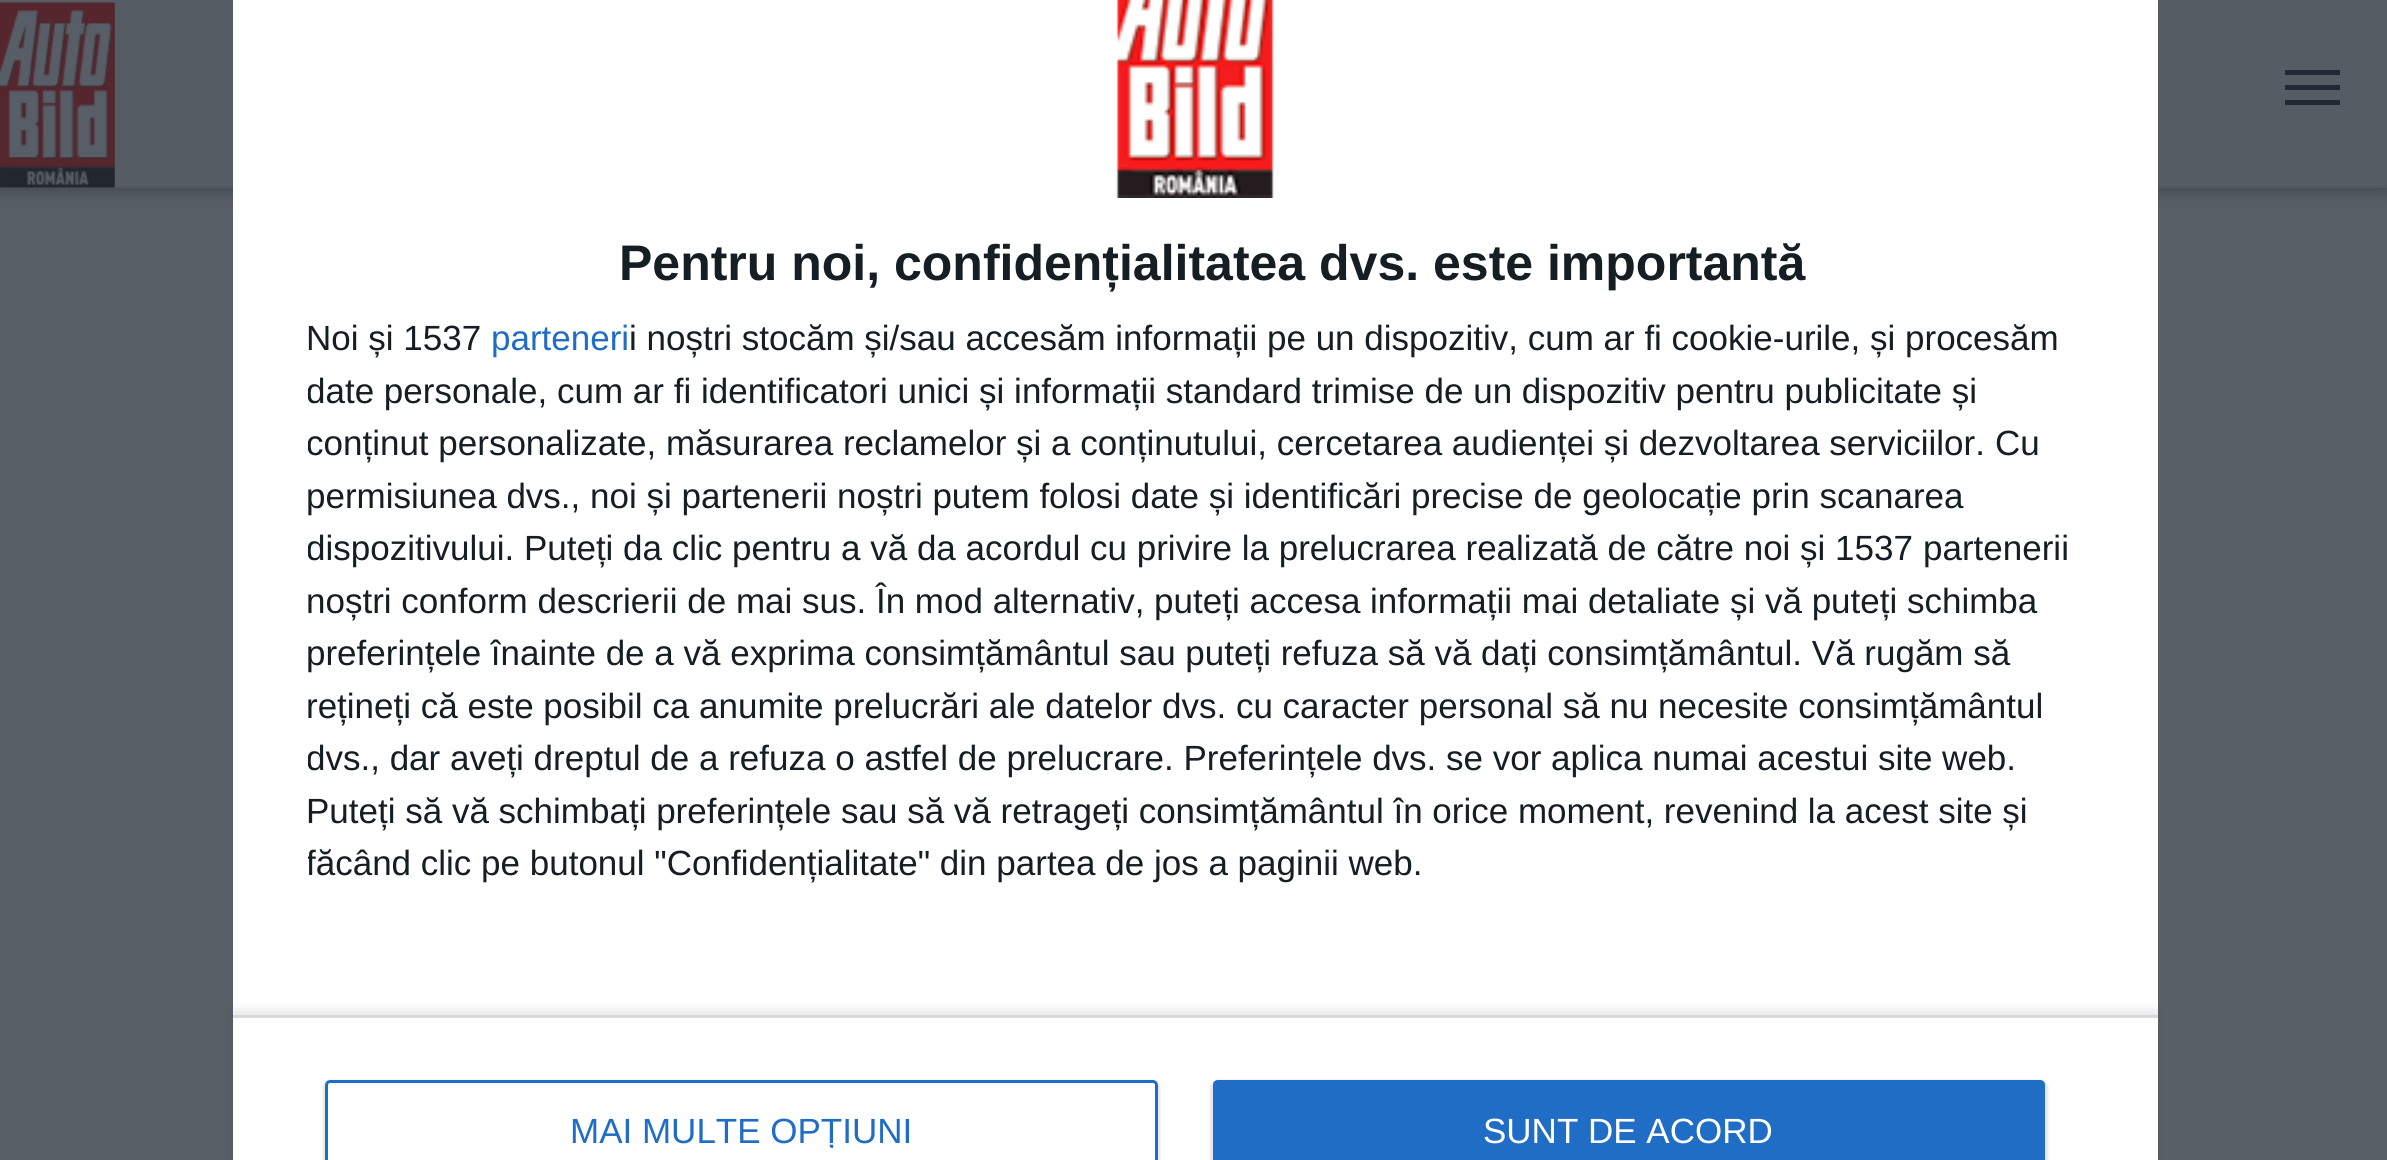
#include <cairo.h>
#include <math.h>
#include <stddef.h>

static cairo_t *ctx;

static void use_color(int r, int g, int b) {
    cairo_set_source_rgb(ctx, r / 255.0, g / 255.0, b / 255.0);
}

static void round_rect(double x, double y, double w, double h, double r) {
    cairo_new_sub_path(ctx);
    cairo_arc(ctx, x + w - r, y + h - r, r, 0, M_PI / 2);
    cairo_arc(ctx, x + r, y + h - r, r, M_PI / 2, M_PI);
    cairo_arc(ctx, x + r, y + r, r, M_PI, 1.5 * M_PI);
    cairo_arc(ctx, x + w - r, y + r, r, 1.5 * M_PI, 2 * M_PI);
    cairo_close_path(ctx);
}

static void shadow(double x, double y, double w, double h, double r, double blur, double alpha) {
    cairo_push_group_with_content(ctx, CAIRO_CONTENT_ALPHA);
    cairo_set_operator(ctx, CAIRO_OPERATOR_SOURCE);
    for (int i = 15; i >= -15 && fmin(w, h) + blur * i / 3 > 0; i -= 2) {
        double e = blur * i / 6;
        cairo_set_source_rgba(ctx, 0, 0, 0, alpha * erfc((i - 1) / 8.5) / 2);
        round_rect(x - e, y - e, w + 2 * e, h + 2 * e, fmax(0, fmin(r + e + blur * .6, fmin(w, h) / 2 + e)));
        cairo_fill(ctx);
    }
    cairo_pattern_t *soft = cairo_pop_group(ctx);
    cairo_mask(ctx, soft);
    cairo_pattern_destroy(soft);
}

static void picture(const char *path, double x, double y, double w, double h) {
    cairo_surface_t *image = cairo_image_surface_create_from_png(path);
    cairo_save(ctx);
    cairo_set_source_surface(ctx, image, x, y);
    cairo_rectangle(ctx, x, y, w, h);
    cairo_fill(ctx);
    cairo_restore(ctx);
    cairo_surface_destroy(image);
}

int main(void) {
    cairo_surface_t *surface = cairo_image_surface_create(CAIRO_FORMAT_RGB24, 2387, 1160);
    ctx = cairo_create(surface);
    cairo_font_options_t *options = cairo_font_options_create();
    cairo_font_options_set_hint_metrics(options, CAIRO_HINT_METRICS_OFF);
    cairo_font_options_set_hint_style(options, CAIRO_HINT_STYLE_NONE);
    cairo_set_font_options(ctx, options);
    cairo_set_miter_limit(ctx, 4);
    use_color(89, 95, 103);
    cairo_paint(ctx);
    use_color(25, 31, 39);
    shadow(0, 0, 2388, 185, 0, 12.5, 0.62);
    use_color(86, 92, 100);
    cairo_rectangle(ctx, 0, 0, 2387, 185);
    cairo_fill(ctx);
    use_color(83, 89, 97);
    cairo_rectangle(ctx, 0, 185, 2387, 3);
    cairo_fill(ctx);
    picture("img1.png", 0, 2, 115, 186);
    use_color(34, 41, 54);
    cairo_rectangle(ctx, 2285, 85, 55, 5);
    cairo_fill(ctx);
    cairo_rectangle(ctx, 2285, 70, 55, 5);
    cairo_fill(ctx);
    cairo_rectangle(ctx, 2285, 100, 55, 5);
    cairo_fill(ctx);
    use_color(255, 255, 255);
    cairo_rectangle(ctx, 233, 0, 1925, 1160);
    cairo_fill(ctx);
    picture("img2.png", 1116, 0, 158, 198);
    cairo_select_font_face(ctx, "Liberation Sans", CAIRO_FONT_SLANT_NORMAL, CAIRO_FONT_WEIGHT_BOLD);
    cairo_set_font_size(ctx, 50);
    use_color(20, 30, 35);
    cairo_move_to(ctx, 619, 280);
    cairo_show_text(ctx, "Pentru noi, confidențialitatea dvs. este importantă");
    cairo_select_font_face(ctx, "Liberation Sans", CAIRO_FONT_SLANT_NORMAL, CAIRO_FONT_WEIGHT_NORMAL);
    cairo_set_font_size(ctx, 35);
    cairo_move_to(ctx, 306, 350);
    cairo_show_text(ctx, "Noi și 1537");
    use_color(32, 109, 197);
    cairo_move_to(ctx, 491, 350);
    cairo_show_text(ctx, "parteneri");
    use_color(20, 30, 35);
    cairo_move_to(ctx, 629, 350);
    cairo_show_text(ctx, "i noștri stocăm și/sau accesăm informații pe un dispozitiv, cum ar fi cookie-urile, și procesăm");
    cairo_save(ctx);
    cairo_rectangle(ctx, 308, 313, 1775, 577);
    cairo_clip(ctx);
    cairo_move_to(ctx, 306, 403);
    cairo_show_text(ctx, "date personale, cum ar fi identificatori unici și informații standard trimise de un dispozitiv pentru publicitate și");
    cairo_move_to(ctx, 306, 455);
    cairo_show_text(ctx, "conținut personalizate, măsurarea reclamelor și a conținutului, cercetarea audienței și dezvoltarea serviciilor.");
    cairo_restore(ctx);
    cairo_move_to(ctx, 1995, 455);
    cairo_show_text(ctx, "Cu");
    cairo_move_to(ctx, 306, 508);
    cairo_show_text(ctx, "permisiunea dvs., noi și partenerii noștri putem folosi date și identificări precise de geolocație prin scanarea");
    cairo_save(ctx);
    cairo_rectangle(ctx, 308, 313, 1775, 577);
    cairo_clip(ctx);
    cairo_move_to(ctx, 306, 560);
    cairo_show_text(ctx, "dispozitivului. Puteți da clic pentru a vă da acordul cu privire la prelucrarea realizată de către noi și 1537");
    cairo_restore(ctx);
    cairo_move_to(ctx, 1923, 560);
    cairo_show_text(ctx, "partenerii");
    cairo_move_to(ctx, 306, 613);
    cairo_show_text(ctx, "noștri conform descrierii de mai sus. În mod alternativ, puteți accesa informații mai detaliate și vă puteți schimba");
    cairo_move_to(ctx, 306, 665);
    cairo_show_text(ctx, "preferințele înainte de a vă exprima consimțământul sau puteți refuza să vă dați consimțământul. Vă rugăm să");
    cairo_move_to(ctx, 306, 718);
    cairo_show_text(ctx, "rețineți că este posibil ca anumite prelucrări ale datelor dvs. cu caracter personal să nu necesite consimțământul");
    cairo_save(ctx);
    cairo_rectangle(ctx, 308, 313, 1775, 577);
    cairo_clip(ctx);
    cairo_move_to(ctx, 306, 770);
    cairo_show_text(ctx, "dvs., dar aveți dreptul de a refuza o astfel de prelucrare. Preferințele dvs. se vor aplica numai acestui site web.");
    cairo_restore(ctx);
    cairo_move_to(ctx, 306, 823);
    cairo_show_text(ctx, "Puteți să vă schimbați preferințele sau să vă retrageți consimțământul în orice moment, revenind la acest site și");
    cairo_save(ctx);
    cairo_rectangle(ctx, 308, 313, 1775, 577);
    cairo_clip(ctx);
    cairo_move_to(ctx, 306, 875);
    cairo_show_text(ctx, "făcând clic pe butonul \"Confidențialitate\" din partea de jos a paginii web.");
    cairo_restore(ctx);
    cairo_save(ctx);
    cairo_set_fill_rule(ctx, CAIRO_FILL_RULE_EVEN_ODD);
    cairo_new_path(ctx);
    cairo_move_to(ctx, 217, 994);
    cairo_line_to(ctx, 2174, 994);
    cairo_line_to(ctx, 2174, 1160);
    cairo_line_to(ctx, 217, 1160);
    cairo_close_path(ctx);
    cairo_move_to(ctx, 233, 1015);
    cairo_line_to(ctx, 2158, 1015);
    cairo_line_to(ctx, 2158, 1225);
    cairo_line_to(ctx, 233, 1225);
    cairo_close_path(ctx);
    cairo_clip(ctx);
    use_color(0, 0, 0);
    shadow(233, 1010, 1925, 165, 0, 5, 0.1);
    cairo_restore(ctx);
    use_color(216, 216, 216);
    cairo_rectangle(ctx, 233, 1015, 1925, 3);
    cairo_fill(ctx);
    use_color(0, 0, 0);
    shadow(323, 1080, 837, 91, 8, 1, 0.1);
    use_color(255, 255, 255);
    cairo_new_path(ctx);
    cairo_move_to(ctx, 330, 1080);
    cairo_line_to(ctx, 1153, 1080);
    cairo_curve_to(ctx, 1156, 1080, 1158, 1082, 1158, 1085);
    cairo_line_to(ctx, 1158, 1160);
    cairo_line_to(ctx, 325, 1160);
    cairo_line_to(ctx, 325, 1085);
    cairo_curve_to(ctx, 325, 1082, 327, 1080, 330, 1080);
    cairo_close_path(ctx);
    cairo_fill(ctx);
    round_rect(326.5, 1081.5, 830, 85, 3.5);
    use_color(32, 109, 197);
    cairo_set_line_width(ctx, 3);
    cairo_stroke(ctx);
    cairo_save(ctx);
    cairo_rectangle(ctx, 570, 1113, 343, 35);
    cairo_clip(ctx);
    cairo_move_to(ctx, 570, 1143);
    cairo_show_text(ctx, "MAI MULTE OPȚIUNI");
    cairo_restore(ctx);
    use_color(0, 0, 0);
    shadow(1210, 1080, 838, 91, 8, 1, 0.1);
    use_color(32, 109, 197);
    cairo_new_path(ctx);
    cairo_move_to(ctx, 1218, 1080);
    cairo_line_to(ctx, 2040, 1080);
    cairo_curve_to(ctx, 2043, 1080, 2045, 1082, 2045, 1085);
    cairo_line_to(ctx, 2045, 1160);
    cairo_line_to(ctx, 1213, 1160);
    cairo_line_to(ctx, 1213, 1085);
    cairo_curve_to(ctx, 1213, 1082, 1215, 1080, 1218, 1080);
    cairo_close_path(ctx);
    cairo_fill(ctx);
    use_color(255, 255, 255);
    cairo_move_to(ctx, 1483, 1143);
    cairo_show_text(ctx, "SUNT DE ACORD");
    cairo_surface_write_to_png(surface, "result.png");
    cairo_font_options_destroy(options);
    cairo_destroy(ctx);
    cairo_surface_destroy(surface);
    return 0;
}
